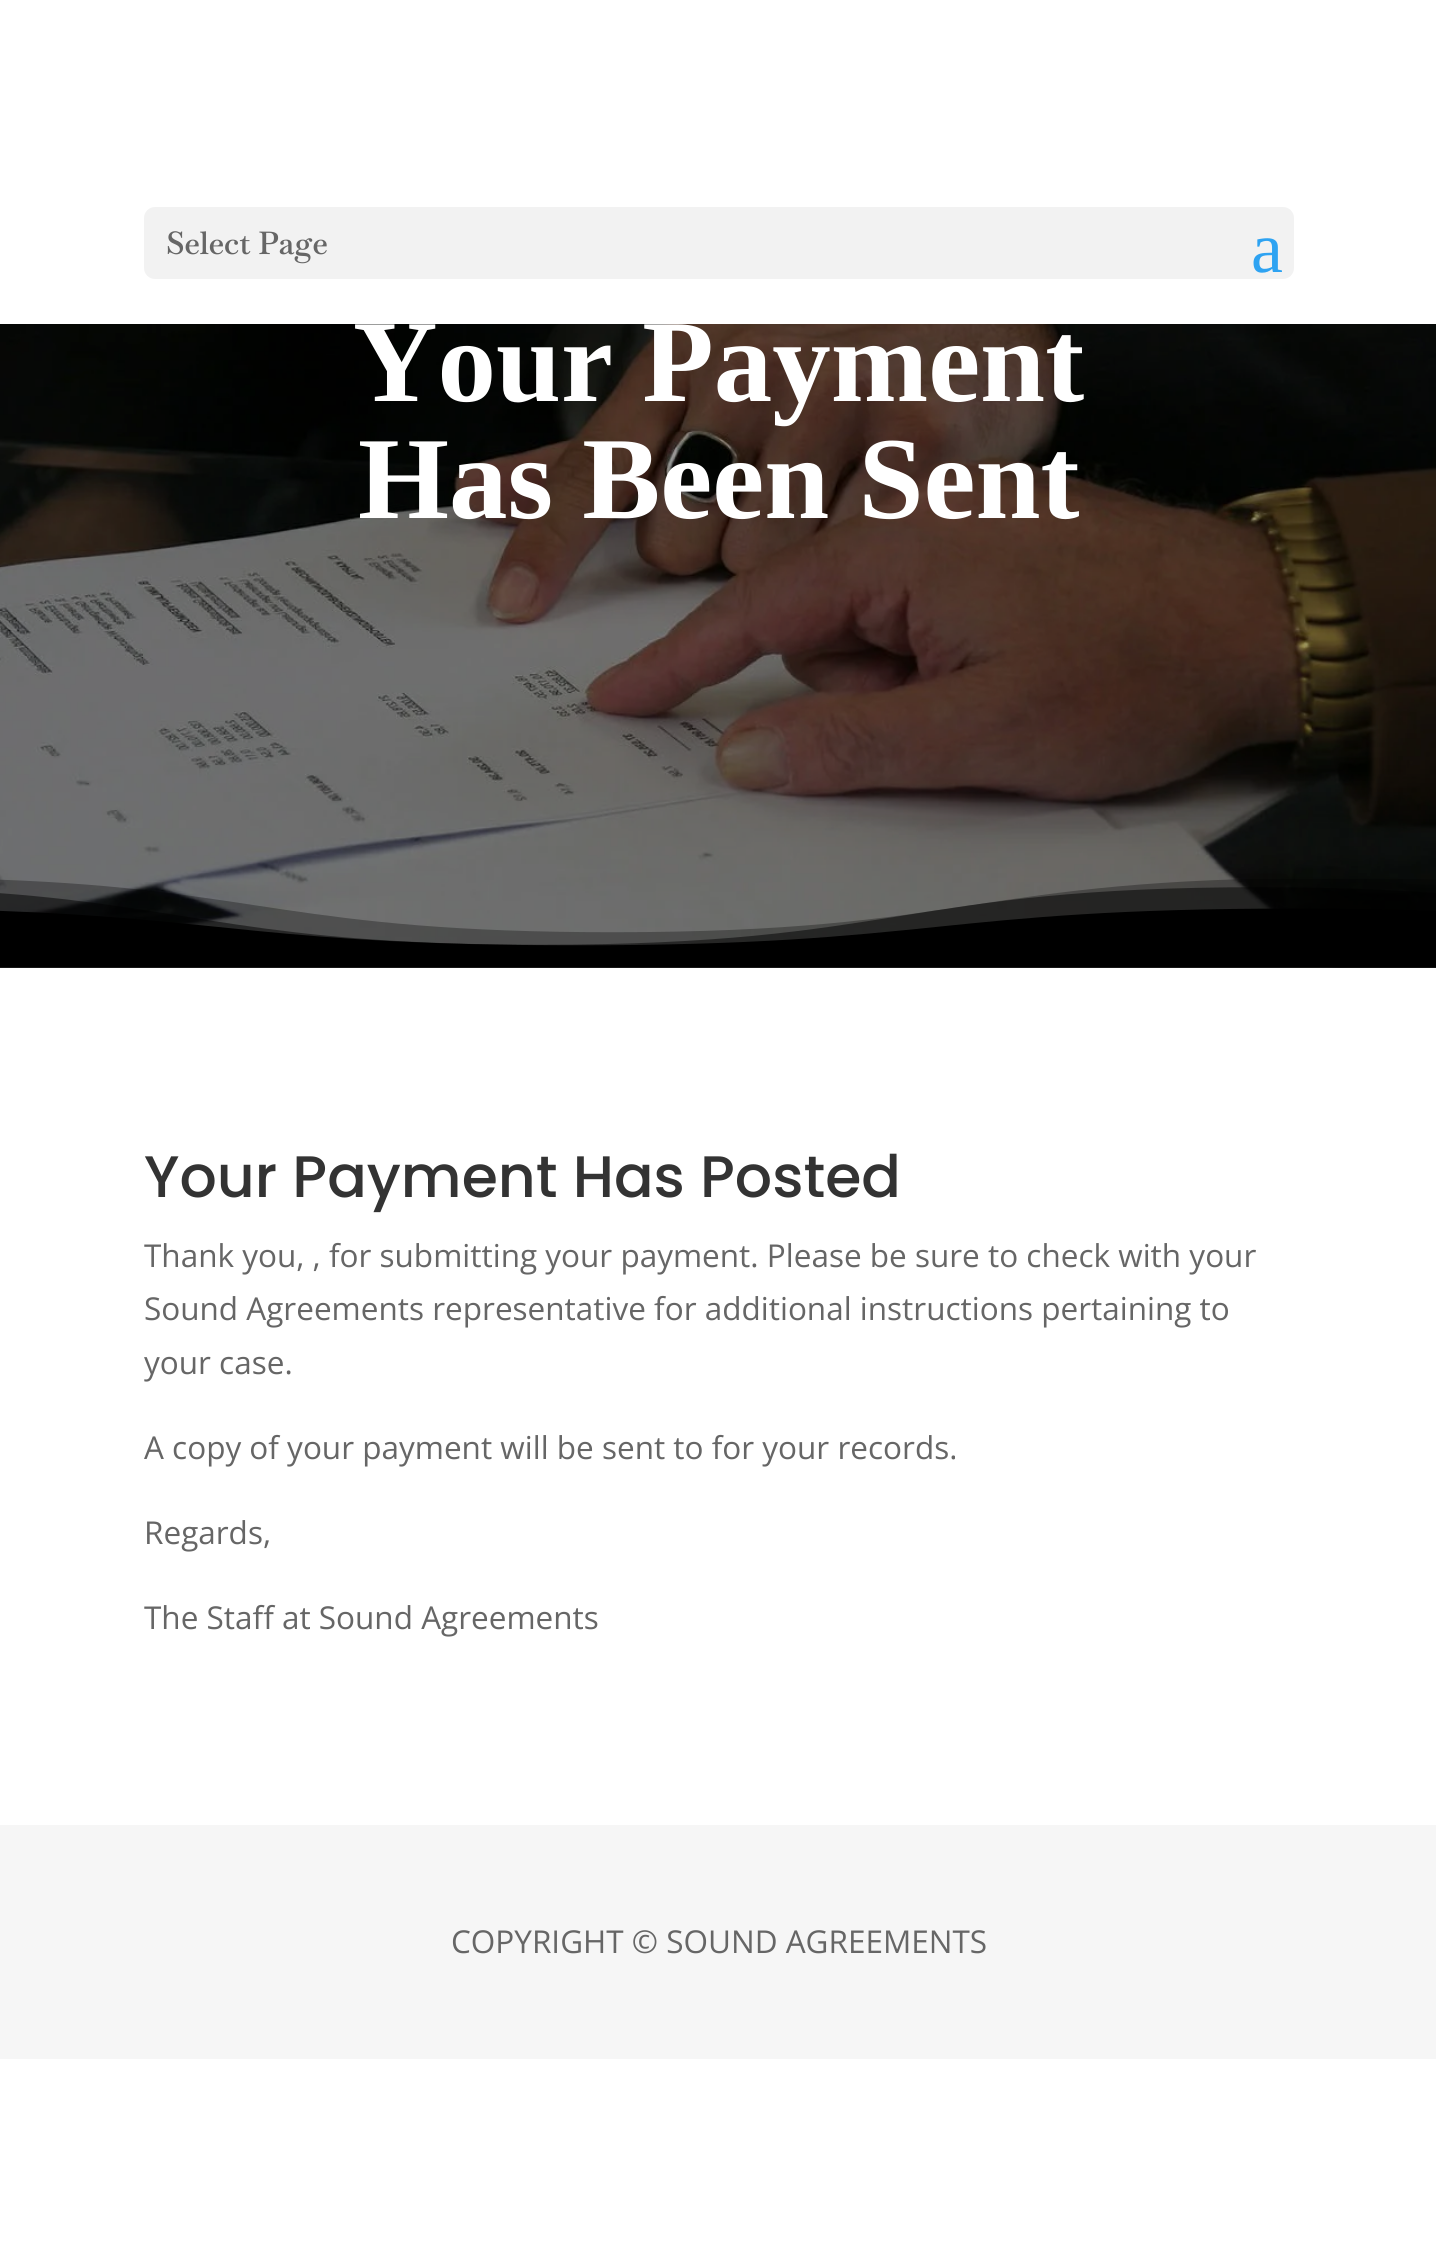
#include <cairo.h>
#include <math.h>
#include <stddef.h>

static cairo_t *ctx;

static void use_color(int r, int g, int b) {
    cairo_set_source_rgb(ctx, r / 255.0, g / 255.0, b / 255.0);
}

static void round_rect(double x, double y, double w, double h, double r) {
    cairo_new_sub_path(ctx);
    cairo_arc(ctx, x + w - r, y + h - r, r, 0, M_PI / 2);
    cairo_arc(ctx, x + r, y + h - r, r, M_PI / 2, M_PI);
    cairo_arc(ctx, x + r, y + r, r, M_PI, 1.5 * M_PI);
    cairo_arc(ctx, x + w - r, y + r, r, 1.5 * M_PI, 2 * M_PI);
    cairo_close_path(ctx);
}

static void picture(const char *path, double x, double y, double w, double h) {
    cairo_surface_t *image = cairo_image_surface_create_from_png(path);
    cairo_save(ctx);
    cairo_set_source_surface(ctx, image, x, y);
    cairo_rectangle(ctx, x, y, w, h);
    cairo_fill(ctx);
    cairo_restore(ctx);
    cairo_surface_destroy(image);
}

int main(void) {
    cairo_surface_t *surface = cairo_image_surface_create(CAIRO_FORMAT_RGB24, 1436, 2255);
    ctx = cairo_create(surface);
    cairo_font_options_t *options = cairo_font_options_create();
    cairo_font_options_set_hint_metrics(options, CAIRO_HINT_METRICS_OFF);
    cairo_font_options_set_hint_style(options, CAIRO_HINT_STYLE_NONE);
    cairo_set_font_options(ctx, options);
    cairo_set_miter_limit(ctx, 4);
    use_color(255, 255, 255);
    cairo_paint(ctx);
    use_color(242, 242, 242);
    round_rect(144, 207, 1150, 72, 11);
    cairo_fill(ctx);
    cairo_select_font_face(ctx, "Baskervville SemiBold", CAIRO_FONT_SLANT_NORMAL, CAIRO_FONT_WEIGHT_NORMAL);
    cairo_set_font_size(ctx, 31.5);
    use_color(102, 102, 102);
    cairo_move_to(ctx, 166, 254);
    cairo_show_text(ctx, "Select Page");
    cairo_select_font_face(ctx, "Liberation Serif", CAIRO_FONT_SLANT_NORMAL, CAIRO_FONT_WEIGHT_NORMAL);
    cairo_set_font_size(ctx, 72);
    use_color(46, 163, 242);
    cairo_move_to(ctx, 1251, 272);
    cairo_show_text(ctx, "a");
    picture("img1.png", 0, 324, 1436, 644);
    cairo_select_font_face(ctx, "Liberation Serif", CAIRO_FONT_SLANT_NORMAL, CAIRO_FONT_WEIGHT_BOLD);
    cairo_set_font_size(ctx, 117);
    use_color(255, 255, 255);
    cairo_move_to(ctx, 353, 401);
    cairo_show_text(ctx, "Your Payment");
    cairo_move_to(ctx, 358, 518);
    cairo_show_text(ctx, "Has Been Sent");
    picture("img2.png", 0, 879, 1436, 89);
    cairo_select_font_face(ctx, "Poppins Medium", CAIRO_FONT_SLANT_NORMAL, CAIRO_FONT_WEIGHT_NORMAL);
    cairo_set_font_size(ctx, 58.5);
    use_color(51, 51, 51);
    cairo_move_to(ctx, 144, 1197);
    cairo_show_text(ctx, "Your Payment Has Posted");
    cairo_select_font_face(ctx, "Open Sans", CAIRO_FONT_SLANT_NORMAL, CAIRO_FONT_WEIGHT_NORMAL);
    cairo_set_font_size(ctx, 31.5);
    use_color(102, 102, 102);
    cairo_move_to(ctx, 144, 1267);
    cairo_show_text(ctx, "Thank you, , for submitting your payment. Please be sure to check with your");
    cairo_move_to(ctx, 144, 1320);
    cairo_show_text(ctx, "Sound Agreements representative for additional instructions pertaining to");
    cairo_move_to(ctx, 144, 1374);
    cairo_show_text(ctx, "your case.");
    cairo_move_to(ctx, 144, 1459);
    cairo_show_text(ctx, "A copy of your payment will be sent to for your records.");
    cairo_move_to(ctx, 144, 1544);
    cairo_show_text(ctx, "Regards,");
    cairo_move_to(ctx, 144, 1629);
    cairo_show_text(ctx, "The Staff at Sound Agreements");
    use_color(246, 246, 246);
    cairo_rectangle(ctx, 0, 1825, 1436, 234);
    cairo_fill(ctx);
    use_color(102, 102, 102);
    cairo_move_to(ctx, 451, 1953);
    cairo_show_text(ctx, "COPYRIGHT © SOUND AGREEMENTS");
    cairo_surface_write_to_png(surface, "result.png");
    cairo_font_options_destroy(options);
    cairo_destroy(ctx);
    cairo_surface_destroy(surface);
    return 0;
}
